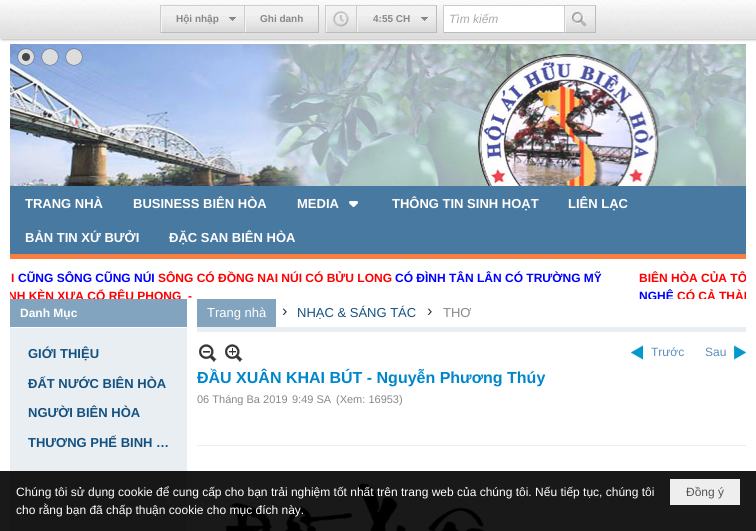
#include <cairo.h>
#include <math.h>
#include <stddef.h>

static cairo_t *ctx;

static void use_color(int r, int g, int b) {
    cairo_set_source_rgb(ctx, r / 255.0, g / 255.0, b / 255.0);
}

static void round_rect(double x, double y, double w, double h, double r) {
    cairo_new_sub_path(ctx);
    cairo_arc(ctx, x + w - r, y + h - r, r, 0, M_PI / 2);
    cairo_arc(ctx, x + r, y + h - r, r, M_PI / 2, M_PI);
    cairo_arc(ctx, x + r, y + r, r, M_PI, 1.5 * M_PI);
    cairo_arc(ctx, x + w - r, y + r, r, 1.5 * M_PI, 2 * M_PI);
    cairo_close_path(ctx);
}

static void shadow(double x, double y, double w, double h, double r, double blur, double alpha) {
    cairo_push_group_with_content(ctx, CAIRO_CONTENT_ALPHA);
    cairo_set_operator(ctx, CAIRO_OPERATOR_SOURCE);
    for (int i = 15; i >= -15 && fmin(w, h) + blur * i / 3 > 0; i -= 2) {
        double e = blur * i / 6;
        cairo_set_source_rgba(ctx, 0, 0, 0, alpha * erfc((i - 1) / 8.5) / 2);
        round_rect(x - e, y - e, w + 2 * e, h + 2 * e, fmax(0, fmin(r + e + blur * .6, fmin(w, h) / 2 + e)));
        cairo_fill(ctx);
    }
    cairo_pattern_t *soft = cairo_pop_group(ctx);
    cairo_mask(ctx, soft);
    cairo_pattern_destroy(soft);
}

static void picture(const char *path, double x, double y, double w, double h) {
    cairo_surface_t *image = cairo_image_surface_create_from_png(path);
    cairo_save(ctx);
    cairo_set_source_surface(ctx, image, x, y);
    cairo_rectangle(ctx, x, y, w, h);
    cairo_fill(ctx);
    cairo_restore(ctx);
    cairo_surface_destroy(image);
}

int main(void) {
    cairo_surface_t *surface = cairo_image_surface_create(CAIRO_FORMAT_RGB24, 756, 531);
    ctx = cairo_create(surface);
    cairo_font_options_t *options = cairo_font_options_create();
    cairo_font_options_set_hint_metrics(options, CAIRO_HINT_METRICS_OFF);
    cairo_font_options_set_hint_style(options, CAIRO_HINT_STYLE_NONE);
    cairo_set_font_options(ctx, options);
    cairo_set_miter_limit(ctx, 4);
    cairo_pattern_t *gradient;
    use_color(255, 255, 255);
    cairo_paint(ctx);
    picture("img9.png", 10, 44, 736, 142);
    use_color(0, 0, 0);
    shadow(2, 0, 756, 39, 0, 1.5, 0.5);
    gradient = cairo_pattern_create_linear(378, 0, 378, 38);
    cairo_pattern_add_color_stop_rgba(gradient, 0, 0.988, 0.988, 0.988, 1);
    cairo_pattern_add_color_stop_rgba(gradient, 1, 0.863, 0.863, 0.863, 1);
    cairo_set_source(ctx, gradient);
    cairo_pattern_destroy(gradient);
    cairo_rectangle(ctx, 0, 0, 756, 38);
    cairo_fill(ctx);
    use_color(224, 224, 224);
    cairo_rectangle(ctx, 0, 38, 756, 1);
    cairo_fill(ctx);
    picture("img1.png", 1, 0, 754, 31);
    use_color(241, 241, 241);
    cairo_rectangle(ctx, 162, 7, 82, 25);
    cairo_fill(ctx);
    picture("img2.png", 162, 16, 82, 16);
    cairo_save(ctx);
    cairo_rectangle(ctx, 161, 6, 83, 26);
    cairo_clip(ctx);
    use_color(245, 245, 245);
    cairo_set_fill_rule(ctx, CAIRO_FILL_RULE_EVEN_ODD);
    cairo_new_path(ctx);
    cairo_move_to(ctx, 62, -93);
    cairo_line_to(ctx, 343, -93);
    cairo_line_to(ctx, 343, 131);
    cairo_line_to(ctx, 62, 131);
    cairo_close_path(ctx);
    cairo_move_to(ctx, 162, 7);
    cairo_line_to(ctx, 245, 7);
    cairo_line_to(ctx, 245, 33);
    cairo_line_to(ctx, 162, 33);
    cairo_close_path(ctx);
    cairo_fill(ctx);
    cairo_restore(ctx);
    use_color(204, 204, 204);
    cairo_rectangle(ctx, 160, 5, 159, 1);
    cairo_fill(ctx);
    use_color(187, 187, 187);
    cairo_rectangle(ctx, 160, 32, 84, 1);
    cairo_fill(ctx);
    use_color(204, 204, 204);
    cairo_rectangle(ctx, 160, 5, 1, 28);
    cairo_fill(ctx);
    cairo_select_font_face(ctx, "Liberation Sans", CAIRO_FONT_SLANT_NORMAL, CAIRO_FONT_WEIGHT_BOLD);
    cairo_set_font_size(ctx, 10);
    use_color(136, 136, 136);
    cairo_move_to(ctx, 176, 22);
    cairo_show_text(ctx, "Hội nhập");
    picture("img3.png", 229, 17, 7, 4);
    use_color(241, 241, 241);
    cairo_rectangle(ctx, 246, 7, 72, 25);
    cairo_fill(ctx);
    picture("img4.png", 246, 16, 72, 16);
    cairo_save(ctx);
    cairo_rectangle(ctx, 245, 6, 73, 26);
    cairo_clip(ctx);
    use_color(245, 245, 245);
    cairo_set_fill_rule(ctx, CAIRO_FILL_RULE_EVEN_ODD);
    cairo_new_path(ctx);
    cairo_move_to(ctx, 146, -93);
    cairo_line_to(ctx, 417, -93);
    cairo_line_to(ctx, 417, 131);
    cairo_line_to(ctx, 146, 131);
    cairo_close_path(ctx);
    cairo_move_to(ctx, 246, 7);
    cairo_line_to(ctx, 319, 7);
    cairo_line_to(ctx, 319, 33);
    cairo_line_to(ctx, 246, 33);
    cairo_close_path(ctx);
    cairo_fill(ctx);
    cairo_restore(ctx);
    use_color(187, 187, 187);
    cairo_rectangle(ctx, 318, 5, 1, 28);
    cairo_fill(ctx);
    cairo_rectangle(ctx, 244, 32, 75, 1);
    cairo_fill(ctx);
    use_color(204, 204, 204);
    cairo_rectangle(ctx, 244, 5, 1, 28);
    cairo_fill(ctx);
    use_color(136, 136, 136);
    cairo_move_to(ctx, 260, 22);
    cairo_show_text(ctx, "Ghi danh");
    use_color(241, 241, 241);
    cairo_rectangle(ctx, 327, 7, 109, 25);
    cairo_fill(ctx);
    picture("img5.png", 327, 16, 109, 16);
    cairo_save(ctx);
    cairo_rectangle(ctx, 326, 6, 110, 26);
    cairo_clip(ctx);
    use_color(245, 245, 245);
    cairo_set_fill_rule(ctx, CAIRO_FILL_RULE_EVEN_ODD);
    cairo_new_path(ctx);
    cairo_move_to(ctx, 227, -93);
    cairo_line_to(ctx, 535, -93);
    cairo_line_to(ctx, 535, 131);
    cairo_line_to(ctx, 227, 131);
    cairo_close_path(ctx);
    cairo_move_to(ctx, 327, 7);
    cairo_line_to(ctx, 437, 7);
    cairo_line_to(ctx, 437, 33);
    cairo_line_to(ctx, 327, 33);
    cairo_close_path(ctx);
    cairo_fill(ctx);
    cairo_restore(ctx);
    use_color(204, 204, 204);
    cairo_rectangle(ctx, 325, 5, 112, 1);
    cairo_fill(ctx);
    use_color(187, 187, 187);
    cairo_rectangle(ctx, 436, 5, 1, 28);
    cairo_fill(ctx);
    cairo_rectangle(ctx, 325, 32, 112, 1);
    cairo_fill(ctx);
    use_color(204, 204, 204);
    cairo_rectangle(ctx, 325, 5, 1, 28);
    cairo_fill(ctx);
    use_color(242, 242, 242);
    cairo_rectangle(ctx, 357, 6, 1, 26);
    cairo_fill(ctx);
    picture("img6.png", 333, 11, 16, 16);
    use_color(204, 204, 204);
    cairo_rectangle(ctx, 356, 6, 1, 26);
    cairo_fill(ctx);
    use_color(136, 136, 136);
    cairo_move_to(ctx, 373, 22);
    cairo_show_text(ctx, "4:55 CH");
    picture("img3.png", 421, 17, 7, 4);
    use_color(204, 204, 204);
    cairo_rectangle(ctx, 443, 5, 153, 1);
    cairo_fill(ctx);
    use_color(187, 187, 187);
    cairo_rectangle(ctx, 443, 32, 121, 1);
    cairo_fill(ctx);
    use_color(204, 204, 204);
    cairo_rectangle(ctx, 443, 5, 1, 28);
    cairo_fill(ctx);
    use_color(255, 255, 255);
    cairo_rectangle(ctx, 444, 6, 120, 26);
    cairo_fill(ctx);
    cairo_select_font_face(ctx, "Liberation Sans", CAIRO_FONT_SLANT_ITALIC, CAIRO_FONT_WEIGHT_NORMAL);
    cairo_set_font_size(ctx, 12);
    use_color(170, 170, 170);
    cairo_move_to(ctx, 449, 23);
    cairo_show_text(ctx, "Tìm kiếm");
    use_color(241, 241, 241);
    cairo_rectangle(ctx, 566, 7, 29, 25);
    cairo_fill(ctx);
    picture("img7.png", 566, 16, 29, 16);
    cairo_save(ctx);
    cairo_rectangle(ctx, 565, 6, 30, 26);
    cairo_clip(ctx);
    use_color(245, 245, 245);
    cairo_set_fill_rule(ctx, CAIRO_FILL_RULE_EVEN_ODD);
    cairo_new_path(ctx);
    cairo_move_to(ctx, 466, -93);
    cairo_line_to(ctx, 694, -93);
    cairo_line_to(ctx, 694, 131);
    cairo_line_to(ctx, 466, 131);
    cairo_close_path(ctx);
    cairo_move_to(ctx, 566, 7);
    cairo_line_to(ctx, 596, 7);
    cairo_line_to(ctx, 596, 33);
    cairo_line_to(ctx, 566, 33);
    cairo_close_path(ctx);
    cairo_fill(ctx);
    cairo_restore(ctx);
    use_color(187, 187, 187);
    cairo_rectangle(ctx, 595, 5, 1, 28);
    cairo_fill(ctx);
    cairo_rectangle(ctx, 564, 32, 32, 1);
    cairo_fill(ctx);
    use_color(204, 204, 204);
    cairo_rectangle(ctx, 564, 5, 1, 28);
    cairo_fill(ctx);
    picture("img8.png", 572, 12, 15, 15);
    use_color(51, 51, 51);
    shadow(18, 49, 16, 16, 8, 0.5, 1);
    use_color(221, 221, 221);
    cairo_arc(ctx, 26, 57, 8, 0, 2 * M_PI);
    cairo_fill(ctx);
    use_color(67, 70, 72);
    cairo_arc(ctx, 26, 57, 4, 0, 2 * M_PI);
    cairo_fill(ctx);
    use_color(51, 51, 51);
    shadow(42, 49, 16, 16, 8, 0.5, 1);
    use_color(221, 221, 221);
    cairo_arc(ctx, 50, 57, 8, 0, 2 * M_PI);
    cairo_fill(ctx);
    use_color(51, 51, 51);
    shadow(66, 49, 16, 16, 8, 0.5, 1);
    use_color(221, 221, 221);
    cairo_arc(ctx, 74, 57, 8, 0, 2 * M_PI);
    cairo_fill(ctx);
    use_color(72, 121, 160);
    cairo_rectangle(ctx, 10, 186, 736, 68);
    cairo_fill(ctx);
    use_color(250, 126, 63);
    cairo_rectangle(ctx, 10, 254, 736, 5);
    cairo_fill(ctx);
    cairo_select_font_face(ctx, "Liberation Sans", CAIRO_FONT_SLANT_NORMAL, CAIRO_FONT_WEIGHT_BOLD);
    cairo_set_font_size(ctx, 13);
    use_color(255, 255, 255);
    cairo_move_to(ctx, 25, 208);
    cairo_show_text(ctx, "TRANG NHÀ");
    cairo_move_to(ctx, 133, 208);
    cairo_show_text(ctx, "BUSINESS BIÊN HÒA");
    cairo_move_to(ctx, 297, 208);
    cairo_show_text(ctx, "MEDIA");
    picture("img10.png", 349, 201, 9, 6);
    cairo_move_to(ctx, 392, 208);
    cairo_show_text(ctx, "THÔNG TIN SINH HOẠT");
    cairo_move_to(ctx, 568, 208);
    cairo_show_text(ctx, "LIÊN LẠC");
    cairo_move_to(ctx, 25, 242);
    cairo_show_text(ctx, "BẢN TIN XỨ BƯỞI");
    cairo_move_to(ctx, 169, 242);
    cairo_show_text(ctx, "ĐẶC SAN BIÊN HÒA");
    cairo_set_font_size(ctx, 12);
    use_color(255, 0, 0);
    cairo_move_to(ctx, 11, 282);
    cairo_show_text(ctx, "I");
    use_color(0, 0, 255);
    cairo_move_to(ctx, 18, 282);
    cairo_show_text(ctx, "CŨNG SÔNG CŨNG NÚI");
    use_color(255, 0, 0);
    cairo_move_to(ctx, 158, 282);
    cairo_show_text(ctx, "SÔNG CÓ ĐỒNG NAI NÚI CÓ BỬU LONG");
    use_color(0, 0, 255);
    cairo_move_to(ctx, 395, 282);
    cairo_show_text(ctx, "CÓ ĐÌNH TÂN LÂN CÓ TRƯỜNG MỸ");
    cairo_save(ctx);
    cairo_rectangle(ctx, 10, 269, 629, 30);
    cairo_clip(ctx);
    use_color(255, 0, 0);
    cairo_move_to(ctx, 8, 300);
    cairo_show_text(ctx, "NH KÈN XƯA CỔ RÊU PHONG  -");
    cairo_restore(ctx);
    cairo_save(ctx);
    cairo_rectangle(ctx, 639, 269, 107, 30);
    cairo_clip(ctx);
    use_color(255, 0, 0);
    cairo_move_to(ctx, 639, 282);
    cairo_show_text(ctx, "BIÊN HÒA CỦA TÔ");
    use_color(0, 0, 255);
    cairo_move_to(ctx, 639, 300);
    cairo_show_text(ctx, "NGHỆ");
    use_color(255, 0, 0);
    cairo_move_to(ctx, 677, 300);
    cairo_show_text(ctx, "CÓ CẢ THÀN");
    cairo_restore(ctx);
    use_color(131, 164, 190);
    cairo_rectangle(ctx, 10, 299, 177, 28);
    cairo_fill(ctx);
    use_color(255, 255, 255);
    cairo_move_to(ctx, 20, 317);
    cairo_show_text(ctx, "Danh Mục");
    use_color(233, 238, 242);
    cairo_rectangle(ctx, 10, 328, 177, 203);
    cairo_fill(ctx);
    cairo_set_font_size(ctx, 13);
    use_color(20, 81, 129);
    cairo_move_to(ctx, 28, 358);
    cairo_show_text(ctx, "GIỚI THIỆU");
    cairo_move_to(ctx, 28, 388);
    cairo_show_text(ctx, "ĐẤT NƯỚC BIÊN HÒA");
    cairo_move_to(ctx, 28, 417);
    cairo_show_text(ctx, "NGƯỜI BIÊN HÒA");
    cairo_move_to(ctx, 28, 447);
    cairo_show_text(ctx, "THƯƠNG PHẾ BINH …");
    picture("img11.png", 166, 497, 6, 9);
    use_color(233, 238, 242);
    cairo_rectangle(ctx, 197, 327, 549, 5);
    cairo_fill(ctx);
    use_color(131, 164, 190);
    cairo_rectangle(ctx, 197, 299, 79, 28);
    cairo_fill(ctx);
    cairo_select_font_face(ctx, "Liberation Sans", CAIRO_FONT_SLANT_NORMAL, CAIRO_FONT_WEIGHT_NORMAL);
    use_color(255, 255, 255);
    cairo_move_to(ctx, 207, 317);
    cairo_show_text(ctx, "Trang nhà");
    cairo_set_font_size(ctx, 16);
    use_color(51, 51, 51);
    cairo_move_to(ctx, 282, 316);
    cairo_show_text(ctx, "›");
    cairo_set_font_size(ctx, 13);
    use_color(20, 81, 129);
    cairo_move_to(ctx, 297, 317);
    cairo_show_text(ctx, "NHẠC & SÁNG TÁC");
    cairo_set_font_size(ctx, 16);
    use_color(51, 51, 51);
    cairo_move_to(ctx, 427, 316);
    cairo_show_text(ctx, "›");
    cairo_set_font_size(ctx, 13);
    use_color(136, 136, 136);
    cairo_move_to(ctx, 443, 317);
    cairo_show_text(ctx, "THƠ");
    use_color(238, 238, 238);
    cairo_rectangle(ctx, 197, 445, 549, 1);
    cairo_fill(ctx);
    picture("img12.png", 199, 344, 18, 18);
    picture("img13.png", 225, 344, 18, 18);
    picture("img14.png", 631, 345, 12, 15);
    cairo_set_font_size(ctx, 12);
    use_color(90, 142, 187);
    cairo_move_to(ctx, 651, 356);
    cairo_show_text(ctx, "Trước");
    picture("img15.png", 734, 345, 12, 15);
    cairo_move_to(ctx, 705, 356);
    cairo_show_text(ctx, "Sau");
    cairo_save(ctx);
    cairo_rectangle(ctx, 197, 342, 549, 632);
    cairo_clip(ctx);
    cairo_select_font_face(ctx, "Liberation Sans", CAIRO_FONT_SLANT_NORMAL, CAIRO_FONT_WEIGHT_BOLD);
    cairo_set_font_size(ctx, 16);
    use_color(0, 134, 203);
    cairo_move_to(ctx, 197, 383);
    cairo_show_text(ctx, "ĐẦU XUÂN KHAI BÚT - Nguyễn Phương Thúy");
    cairo_restore(ctx);
    cairo_set_font_size(ctx, 11);
    use_color(136, 136, 136);
    cairo_move_to(ctx, 197, 403);
    cairo_show_text(ctx, "06 Tháng Ba 2019");
    cairo_move_to(ctx, 292, 403);
    cairo_show_text(ctx, "9:49 SA");
    cairo_move_to(ctx, 336, 403);
    cairo_show_text(ctx, "(Xem: 16953)");
    picture("img16.png", 225, 483, 263, 48);
    cairo_set_source_rgba(ctx, 0, 0, 0, 0.9);
    cairo_rectangle(ctx, 0, 471, 756, 60);
    cairo_fill(ctx);
    cairo_set_font_size(ctx, 12);
    use_color(255, 255, 255);
    cairo_move_to(ctx, 16, 496);
    cairo_show_text(ctx, "Chúng tôi sử dụng cookie để cung cấp cho bạn trải nghiệm tốt nhất trên trang web của chúng tôi. Nếu tiếp tục, chúng tôi");
    cairo_move_to(ctx, 16, 514);
    cairo_show_text(ctx, "cho rằng bạn đã chấp thuận cookie cho mục đích này.");
    use_color(238, 238, 238);
    cairo_rectangle(ctx, 670, 479, 70, 26);
    cairo_fill(ctx);
    use_color(85, 85, 85);
    cairo_move_to(ctx, 686, 496);
    cairo_show_text(ctx, "Đồng ý");
    cairo_surface_write_to_png(surface, "result.png");
    cairo_font_options_destroy(options);
    cairo_destroy(ctx);
    cairo_surface_destroy(surface);
    return 0;
}
